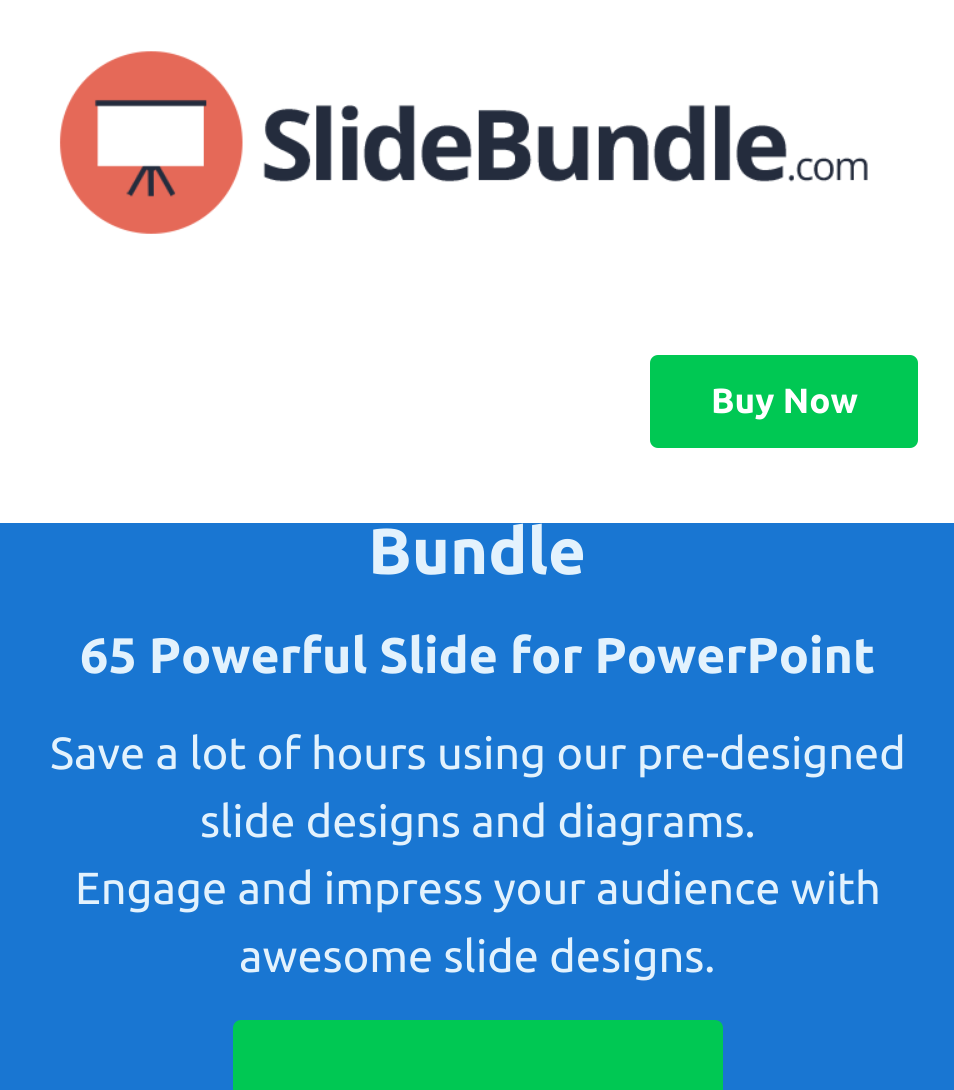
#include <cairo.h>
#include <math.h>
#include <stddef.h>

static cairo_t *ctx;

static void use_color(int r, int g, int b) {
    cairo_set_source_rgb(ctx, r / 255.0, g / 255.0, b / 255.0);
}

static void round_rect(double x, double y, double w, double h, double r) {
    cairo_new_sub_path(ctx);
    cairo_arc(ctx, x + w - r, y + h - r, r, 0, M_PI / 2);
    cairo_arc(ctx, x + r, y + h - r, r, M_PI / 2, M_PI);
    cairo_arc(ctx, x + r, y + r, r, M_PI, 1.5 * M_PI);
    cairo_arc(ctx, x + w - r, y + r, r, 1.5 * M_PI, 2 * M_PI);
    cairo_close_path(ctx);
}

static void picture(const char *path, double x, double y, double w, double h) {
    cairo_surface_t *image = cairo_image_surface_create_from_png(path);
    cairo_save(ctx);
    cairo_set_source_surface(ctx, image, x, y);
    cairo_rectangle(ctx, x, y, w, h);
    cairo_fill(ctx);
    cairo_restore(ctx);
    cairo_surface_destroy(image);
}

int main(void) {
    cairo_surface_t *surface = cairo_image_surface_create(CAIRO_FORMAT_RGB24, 954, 1090);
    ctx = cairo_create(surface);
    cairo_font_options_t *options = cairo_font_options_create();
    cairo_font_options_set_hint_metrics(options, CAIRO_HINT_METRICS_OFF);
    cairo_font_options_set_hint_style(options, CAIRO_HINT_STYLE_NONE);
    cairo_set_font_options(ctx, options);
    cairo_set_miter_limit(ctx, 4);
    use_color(25, 118, 210);
    cairo_paint(ctx);
    use_color(255, 255, 255);
    cairo_rectangle(ctx, 0, 0, 954, 523);
    cairo_fill(ctx);
    picture("img1.png", 59, 51, 809, 183);
    use_color(0, 200, 83);
    round_rect(650, 355, 268, 93, 8);
    cairo_fill(ctx);
    cairo_select_font_face(ctx, "Ubuntu", CAIRO_FONT_SLANT_NORMAL, CAIRO_FONT_WEIGHT_BOLD);
    cairo_set_font_size(ctx, 35);
    use_color(255, 255, 255);
    cairo_move_to(ctx, 711, 413);
    cairo_show_text(ctx, "Buy Now");
    cairo_set_font_size(ctx, 65);
    use_color(227, 242, 253);
    cairo_move_to(ctx, 368, 574);
    cairo_show_text(ctx, "Bundle");
    cairo_set_font_size(ctx, 50);
    cairo_move_to(ctx, 80, 673);
    cairo_show_text(ctx, "65 Powerful Slide for PowerPoint");
    cairo_select_font_face(ctx, "Ubuntu", CAIRO_FONT_SLANT_NORMAL, CAIRO_FONT_WEIGHT_NORMAL);
    cairo_set_font_size(ctx, 45);
    cairo_move_to(ctx, 50, 769);
    cairo_show_text(ctx, "Save a lot of hours using our pre-designed");
    cairo_move_to(ctx, 200, 837);
    cairo_show_text(ctx, "slide designs and diagrams.");
    cairo_move_to(ctx, 75, 904);
    cairo_show_text(ctx, "Engage and impress your audience with");
    cairo_move_to(ctx, 239, 972);
    cairo_show_text(ctx, "awesome slide designs.");
    use_color(0, 200, 83);
    round_rect(233, 1020, 490, 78, 8);
    cairo_fill(ctx);
    cairo_surface_write_to_png(surface, "result.png");
    cairo_font_options_destroy(options);
    cairo_destroy(ctx);
    cairo_surface_destroy(surface);
    return 0;
}
